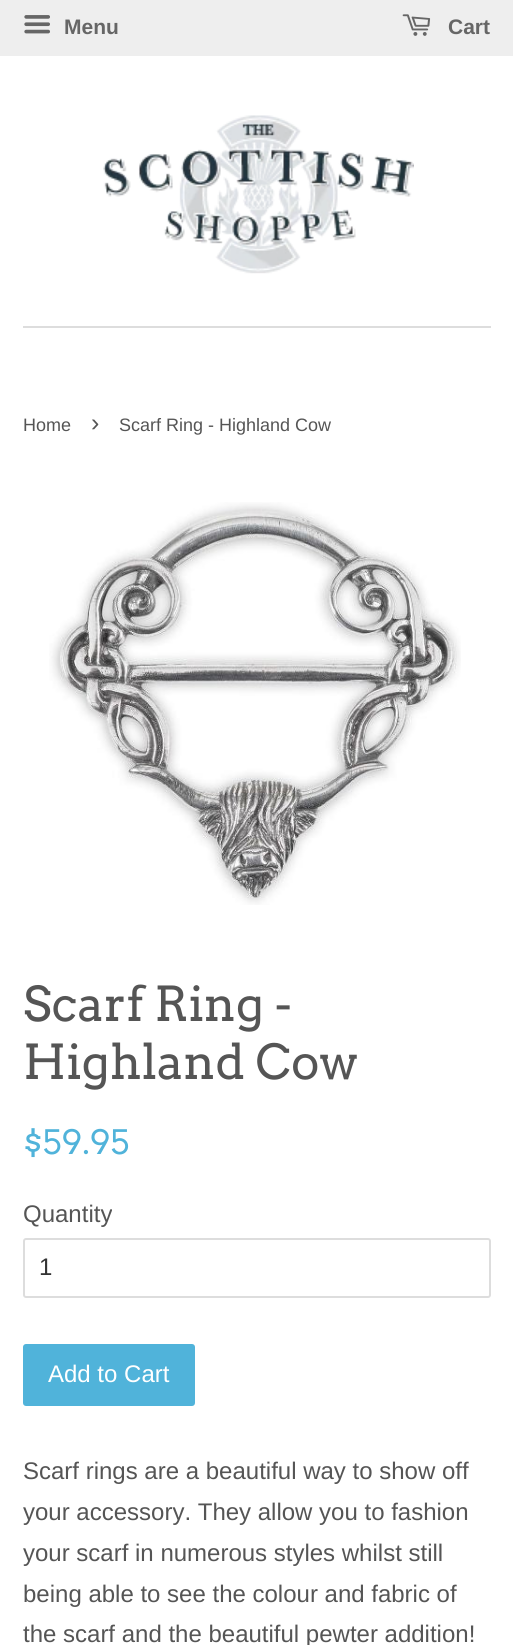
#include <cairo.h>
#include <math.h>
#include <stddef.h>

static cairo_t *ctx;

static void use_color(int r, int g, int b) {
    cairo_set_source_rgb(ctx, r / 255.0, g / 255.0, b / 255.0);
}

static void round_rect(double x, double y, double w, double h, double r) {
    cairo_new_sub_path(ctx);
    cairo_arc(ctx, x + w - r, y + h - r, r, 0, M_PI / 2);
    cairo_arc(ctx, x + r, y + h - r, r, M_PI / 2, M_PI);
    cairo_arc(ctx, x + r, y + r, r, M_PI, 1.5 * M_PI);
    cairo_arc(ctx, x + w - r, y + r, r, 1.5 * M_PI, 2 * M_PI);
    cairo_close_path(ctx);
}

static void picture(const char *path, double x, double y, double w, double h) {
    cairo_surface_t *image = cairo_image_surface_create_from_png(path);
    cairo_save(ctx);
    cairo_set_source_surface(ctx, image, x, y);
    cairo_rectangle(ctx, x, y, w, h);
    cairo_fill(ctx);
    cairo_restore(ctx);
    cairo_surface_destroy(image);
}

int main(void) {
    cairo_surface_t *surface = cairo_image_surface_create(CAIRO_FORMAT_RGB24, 513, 1645);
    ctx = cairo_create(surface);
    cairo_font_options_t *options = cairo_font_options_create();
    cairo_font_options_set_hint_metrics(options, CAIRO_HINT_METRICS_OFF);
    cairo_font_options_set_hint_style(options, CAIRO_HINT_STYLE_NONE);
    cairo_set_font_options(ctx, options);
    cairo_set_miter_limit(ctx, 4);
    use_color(255, 255, 255);
    cairo_paint(ctx);
    use_color(238, 238, 238);
    cairo_rectangle(ctx, 0, 0, 513, 56);
    cairo_fill(ctx);
    picture("img1.png", 24, 15, 26, 19);
    cairo_select_font_face(ctx, "Liberation Sans", CAIRO_FONT_SLANT_NORMAL, CAIRO_FONT_WEIGHT_BOLD);
    cairo_set_font_size(ctx, 21);
    use_color(102, 102, 102);
    cairo_move_to(ctx, 64, 34);
    cairo_show_text(ctx, "Menu");
    picture("img2.png", 402, 14, 29, 22);
    cairo_move_to(ctx, 448, 34);
    cairo_show_text(ctx, "Cart");
    use_color(221, 221, 221);
    cairo_rectangle(ctx, 23, 326, 468, 2);
    cairo_fill(ctx);
    picture("img3.png", 103, 115, 311, 159);
    cairo_select_font_face(ctx, "Liberation Sans", CAIRO_FONT_SLANT_NORMAL, CAIRO_FONT_WEIGHT_NORMAL);
    cairo_set_font_size(ctx, 18);
    use_color(85, 85, 85);
    cairo_move_to(ctx, 23, 431);
    cairo_show_text(ctx, "Home");
    cairo_set_font_size(ctx, 25);
    cairo_move_to(ctx, 91, 431);
    cairo_show_text(ctx, "›");
    cairo_set_font_size(ctx, 18);
    cairo_move_to(ctx, 119, 431);
    cairo_show_text(ctx, "Scarf Ring - Highland Cow");
    picture("img4.png", 49, 502, 412, 403);
    cairo_select_font_face(ctx, "Arvo", CAIRO_FONT_SLANT_NORMAL, CAIRO_FONT_WEIGHT_NORMAL);
    cairo_set_font_size(ctx, 48);
    cairo_move_to(ctx, 23, 1021);
    cairo_show_text(ctx, "Scarf Ring -");
    cairo_move_to(ctx, 23, 1079);
    cairo_show_text(ctx, "Highland Cow");
    cairo_set_font_size(ctx, 33.5);
    use_color(80, 179, 218);
    cairo_move_to(ctx, 23, 1154);
    cairo_show_text(ctx, "$59.95");
    cairo_select_font_face(ctx, "Liberation Sans", CAIRO_FONT_SLANT_NORMAL, CAIRO_FONT_WEIGHT_NORMAL);
    cairo_set_font_size(ctx, 24);
    use_color(85, 85, 85);
    cairo_move_to(ctx, 23, 1222);
    cairo_show_text(ctx, "Quantity");
    round_rect(24, 1239, 466, 58, 2);
    use_color(221, 221, 221);
    cairo_stroke(ctx);
    use_color(51, 51, 51);
    cairo_move_to(ctx, 39, 1275);
    cairo_show_text(ctx, "1");
    use_color(80, 179, 218);
    round_rect(23, 1344, 172, 62, 3);
    cairo_fill(ctx);
    use_color(255, 255, 255);
    cairo_move_to(ctx, 48, 1382);
    cairo_show_text(ctx, "Add to Cart");
    use_color(85, 85, 85);
    cairo_move_to(ctx, 23, 1479);
    cairo_show_text(ctx, "Scarf rings are a beautiful way to show off");
    cairo_move_to(ctx, 23, 1520);
    cairo_show_text(ctx, "your accessory. They allow you to fashion");
    cairo_move_to(ctx, 23, 1561);
    cairo_show_text(ctx, "your scarf in numerous styles whilst still");
    cairo_move_to(ctx, 23, 1602);
    cairo_show_text(ctx, "being able to see the colour and fabric of");
    cairo_move_to(ctx, 23, 1642);
    cairo_show_text(ctx, "the scarf and the beautiful pewter addition!");
    cairo_surface_write_to_png(surface, "result.png");
    cairo_font_options_destroy(options);
    cairo_destroy(ctx);
    cairo_surface_destroy(surface);
    return 0;
}
